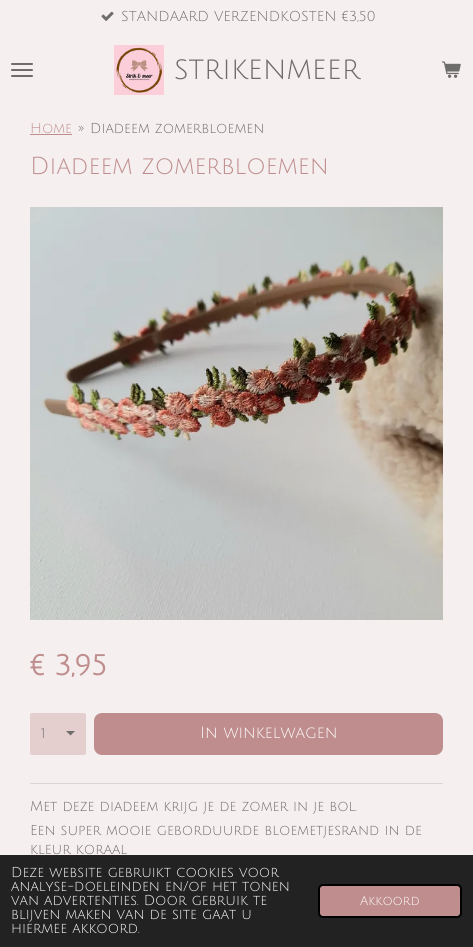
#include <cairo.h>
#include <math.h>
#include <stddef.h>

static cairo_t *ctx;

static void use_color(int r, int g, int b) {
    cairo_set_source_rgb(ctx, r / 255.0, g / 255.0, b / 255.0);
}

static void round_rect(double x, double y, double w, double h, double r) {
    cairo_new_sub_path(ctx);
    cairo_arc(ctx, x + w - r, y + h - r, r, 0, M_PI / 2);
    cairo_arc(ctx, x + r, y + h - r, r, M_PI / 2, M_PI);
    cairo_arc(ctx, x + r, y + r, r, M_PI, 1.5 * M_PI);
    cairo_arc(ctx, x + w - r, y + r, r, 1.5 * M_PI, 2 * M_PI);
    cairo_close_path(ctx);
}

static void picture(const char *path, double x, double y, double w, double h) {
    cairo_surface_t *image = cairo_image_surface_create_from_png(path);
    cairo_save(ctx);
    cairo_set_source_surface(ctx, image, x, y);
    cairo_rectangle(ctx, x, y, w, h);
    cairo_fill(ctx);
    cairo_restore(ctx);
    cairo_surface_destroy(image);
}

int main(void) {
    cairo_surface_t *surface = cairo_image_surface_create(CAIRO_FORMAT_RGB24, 473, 947);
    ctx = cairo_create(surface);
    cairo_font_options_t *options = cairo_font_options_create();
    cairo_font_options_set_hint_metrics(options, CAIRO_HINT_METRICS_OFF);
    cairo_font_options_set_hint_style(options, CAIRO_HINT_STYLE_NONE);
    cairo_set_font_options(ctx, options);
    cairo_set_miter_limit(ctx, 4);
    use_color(246, 239, 239);
    cairo_paint(ctx);
    picture("img1.png", 101, 11, 13, 10);
    cairo_select_font_face(ctx, "Julius Sans One", CAIRO_FONT_SLANT_NORMAL, CAIRO_FONT_WEIGHT_NORMAL);
    cairo_set_font_size(ctx, 14);
    use_color(111, 108, 108);
    cairo_move_to(ctx, 121, 21);
    cairo_show_text(ctx, "STANDAARD VERZENDKOSTEN €3,50");
    round_rect(11, 69, 22, 2, 1);
    cairo_fill(ctx);
    round_rect(11, 63, 22, 2, 1);
    cairo_fill(ctx);
    round_rect(11, 75, 22, 2, 1);
    cairo_fill(ctx);
    picture("img2.png", 114, 45, 50, 50);
    cairo_set_font_size(ctx, 30);
    cairo_move_to(ctx, 174, 79);
    cairo_show_text(ctx, "strikenmeer");
    picture("img3.png", 442, 61, 19, 17);
    cairo_set_font_size(ctx, 14);
    use_color(191, 141, 141);
    cairo_move_to(ctx, 30, 133);
    cairo_show_text(ctx, "Home");
    cairo_rectangle(ctx, 30, 134, 42, 1);
    cairo_fill(ctx);
    use_color(111, 108, 108);
    cairo_move_to(ctx, 78, 133);
    cairo_show_text(ctx, "»");
    cairo_move_to(ctx, 90, 133);
    cairo_show_text(ctx, "Diadeem zomerbloemen");
    cairo_set_font_size(ctx, 24);
    use_color(191, 141, 141);
    cairo_move_to(ctx, 30, 174);
    cairo_show_text(ctx, "Diadeem zomerbloemen");
    picture("img4.png", 30, 207, 413, 413);
    cairo_select_font_face(ctx, "Julius Sans One", CAIRO_FONT_SLANT_NORMAL, CAIRO_FONT_WEIGHT_BOLD);
    cairo_set_font_size(ctx, 28);
    cairo_move_to(ctx, 30, 675);
    cairo_show_text(ctx, "€ 3,95");
    use_color(228, 206, 206);
    round_rect(30, 713, 56, 42, 2);
    cairo_fill(ctx);
    use_color(111, 108, 108);
    cairo_new_path(ctx);
    cairo_move_to(ctx, 70.5, 735.5);
    cairo_line_to(ctx, 66, 731);
    cairo_line_to(ctx, 75, 731);
    cairo_close_path(ctx);
    cairo_fill(ctx);
    cairo_select_font_face(ctx, "Julius Sans One", CAIRO_FONT_SLANT_NORMAL, CAIRO_FONT_WEIGHT_NORMAL);
    cairo_set_font_size(ctx, 14);
    cairo_move_to(ctx, 41, 738);
    cairo_show_text(ctx, "1");
    use_color(191, 141, 141);
    round_rect(94, 713, 349, 42, 8);
    cairo_fill(ctx);
    cairo_set_font_size(ctx, 16);
    use_color(255, 255, 255);
    cairo_move_to(ctx, 200, 738);
    cairo_show_text(ctx, "In winkelwagen");
    use_color(219, 213, 213);
    cairo_rectangle(ctx, 30, 783, 413, 1);
    cairo_fill(ctx);
    cairo_set_font_size(ctx, 14);
    use_color(111, 108, 108);
    cairo_move_to(ctx, 30, 811);
    cairo_show_text(ctx, "Met deze diadeem krijg je de zomer in je bol.");
    cairo_move_to(ctx, 30, 835);
    cairo_show_text(ctx, "Een super mooie geborduurde bloemetjesrand in de");
    cairo_move_to(ctx, 30, 854);
    cairo_show_text(ctx, "kleur koraal");
    use_color(34, 34, 34);
    cairo_rectangle(ctx, 0, 855, 473, 92);
    cairo_fill(ctx);
    use_color(255, 255, 255);
    cairo_move_to(ctx, 11, 877);
    cairo_show_text(ctx, "Deze website gebruikt cookies voor");
    cairo_move_to(ctx, 11, 891);
    cairo_show_text(ctx, "analyse-doeleinden en/of het tonen");
    cairo_move_to(ctx, 11, 905);
    cairo_show_text(ctx, "van advertenties. Door gebruik te");
    cairo_move_to(ctx, 11, 919);
    cairo_show_text(ctx, "blijven maken van de site gaat u");
    cairo_move_to(ctx, 11, 933);
    cairo_show_text(ctx, "hiermee akkoord.");
    use_color(191, 141, 141);
    round_rect(319, 885, 142, 32, 4);
    cairo_fill_preserve(ctx);
    use_color(0, 0, 0);
    cairo_stroke(ctx);
    cairo_set_font_size(ctx, 12.5);
    use_color(255, 255, 255);
    cairo_move_to(ctx, 360, 905);
    cairo_show_text(ctx, "Akkoord");
    cairo_surface_write_to_png(surface, "result.png");
    cairo_font_options_destroy(options);
    cairo_destroy(ctx);
    cairo_surface_destroy(surface);
    return 0;
}
